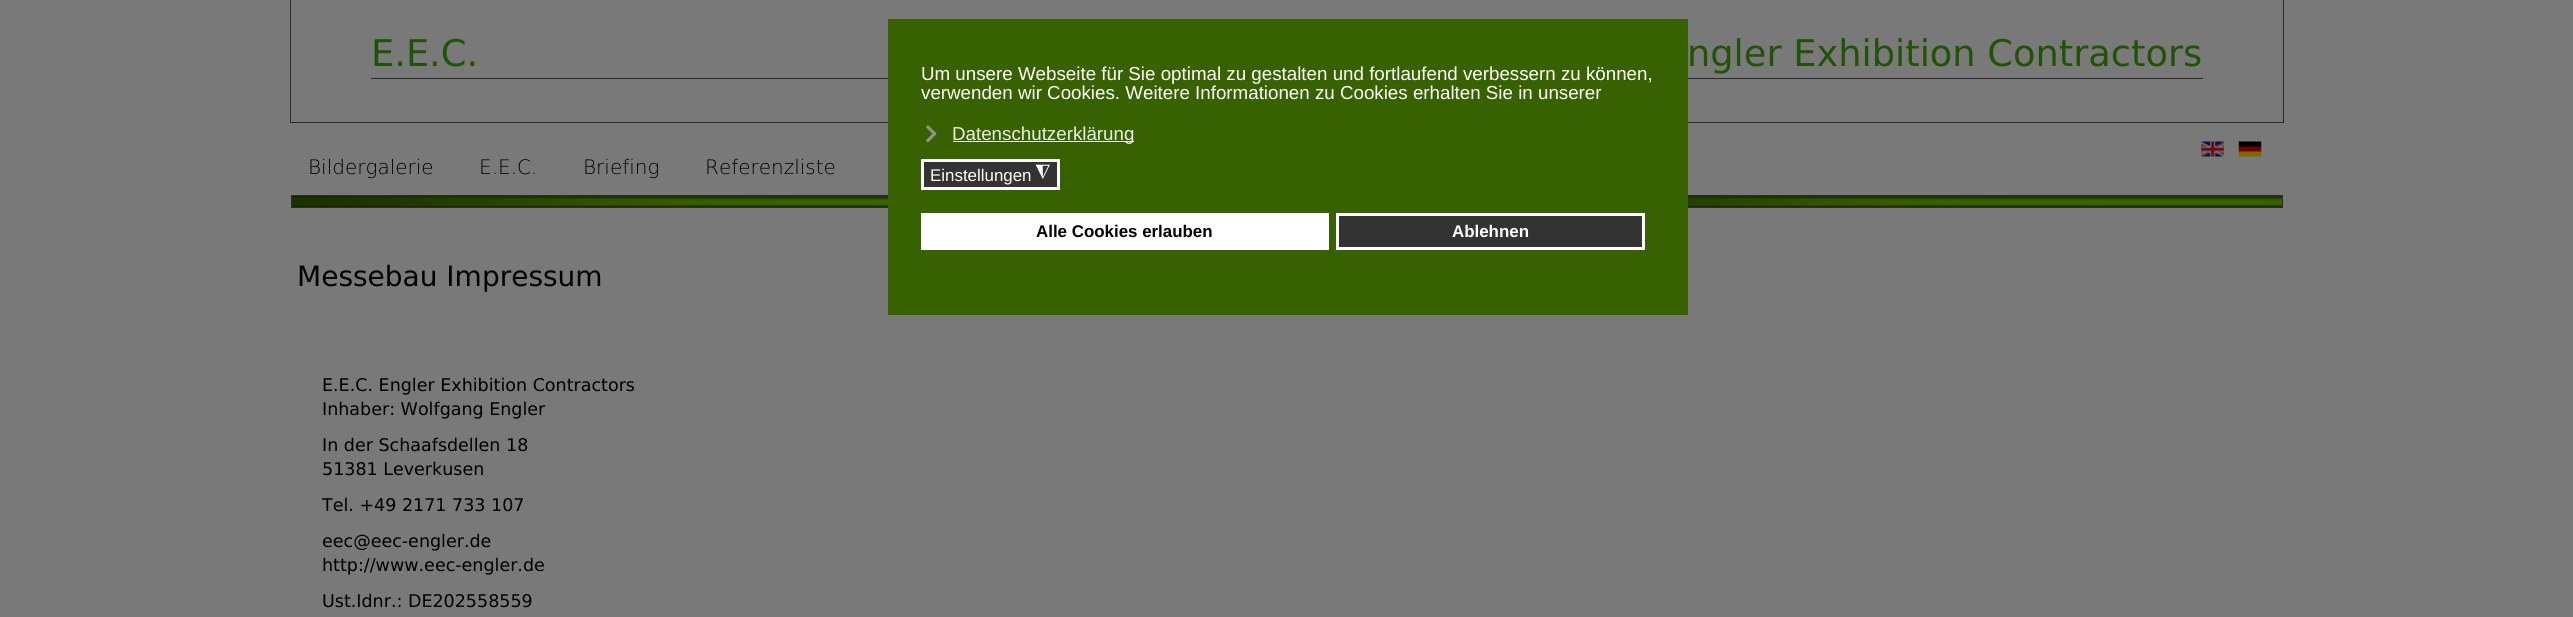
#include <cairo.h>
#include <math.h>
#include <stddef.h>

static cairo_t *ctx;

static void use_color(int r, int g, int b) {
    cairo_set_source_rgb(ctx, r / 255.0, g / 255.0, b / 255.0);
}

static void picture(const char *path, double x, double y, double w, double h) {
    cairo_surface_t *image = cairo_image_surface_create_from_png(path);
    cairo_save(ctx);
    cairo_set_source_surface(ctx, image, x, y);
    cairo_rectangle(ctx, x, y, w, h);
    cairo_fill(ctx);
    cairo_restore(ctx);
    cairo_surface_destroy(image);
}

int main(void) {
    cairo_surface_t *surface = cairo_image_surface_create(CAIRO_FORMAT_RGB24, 2573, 617);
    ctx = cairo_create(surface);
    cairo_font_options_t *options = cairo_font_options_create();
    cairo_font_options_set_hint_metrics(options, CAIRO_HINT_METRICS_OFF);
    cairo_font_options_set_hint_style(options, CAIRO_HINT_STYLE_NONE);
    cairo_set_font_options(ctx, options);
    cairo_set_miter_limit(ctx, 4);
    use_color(121, 121, 121);
    cairo_paint(ctx);
    cairo_rectangle(ctx, 290.5, -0.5, 1993, 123);
    use_color(43, 43, 43);
    cairo_set_line_width(ctx, 1);
    cairo_stroke(ctx);
    cairo_rectangle(ctx, 371, 78, 1832, 1);
    cairo_fill(ctx);
    cairo_select_font_face(ctx, "DejaVu Sans", CAIRO_FONT_SLANT_NORMAL, CAIRO_FONT_WEIGHT_NORMAL);
    cairo_set_font_size(ctx, 36.75);
    use_color(32, 83, 6);
    cairo_move_to(ctx, 371, 66);
    cairo_show_text(ctx, "E.E.C.");
    cairo_move_to(ctx, 1687, 66);
    cairo_show_text(ctx, "ngler Exhibition Contractors");
    picture("img1.png", 2201, 141, 23, 16);
    picture("img2.png", 2238, 141, 24, 16);
    cairo_select_font_face(ctx, "DejaVu Sans ExtraLight", CAIRO_FONT_SLANT_NORMAL, CAIRO_FONT_WEIGHT_NORMAL);
    cairo_set_font_size(ctx, 20);
    use_color(0, 0, 0);
    cairo_move_to(ctx, 308, 174);
    cairo_show_text(ctx, "Bildergalerie");
    cairo_move_to(ctx, 479, 174);
    cairo_show_text(ctx, "E.E.C.");
    cairo_move_to(ctx, 583, 174);
    cairo_show_text(ctx, "Briefing");
    cairo_move_to(ctx, 705, 174);
    cairo_show_text(ctx, "Referenzliste");
    picture("img3.png", 292, 196, 1990, 11);
    cairo_rectangle(ctx, 291.5, 195.5, 1991, 12);
    use_color(43, 43, 43);
    cairo_stroke(ctx);
    cairo_select_font_face(ctx, "DejaVu Sans", CAIRO_FONT_SLANT_NORMAL, CAIRO_FONT_WEIGHT_NORMAL);
    cairo_set_font_size(ctx, 28);
    use_color(0, 0, 0);
    cairo_move_to(ctx, 297, 286);
    cairo_show_text(ctx, "Messebau Impressum");
    cairo_set_font_size(ctx, 17.5);
    cairo_move_to(ctx, 322, 391);
    cairo_show_text(ctx, "E.E.C. Engler Exhibition Contractors");
    cairo_move_to(ctx, 322, 415);
    cairo_show_text(ctx, "Inhaber: Wolfgang Engler");
    cairo_move_to(ctx, 322, 451);
    cairo_show_text(ctx, "In der Schaafsdellen 18");
    cairo_move_to(ctx, 322, 475);
    cairo_show_text(ctx, "51381 Leverkusen");
    cairo_move_to(ctx, 322, 511);
    cairo_show_text(ctx, "Tel. +49 2171 733 107");
    cairo_move_to(ctx, 322, 547);
    cairo_show_text(ctx, "eec@eec-engler.de");
    cairo_move_to(ctx, 322, 571);
    cairo_show_text(ctx, "http://www.eec-engler.de");
    cairo_move_to(ctx, 322, 607);
    cairo_show_text(ctx, "Ust.Idnr.: DE202558559");
    use_color(56, 98, 1);
    cairo_rectangle(ctx, 888, 19, 800, 296);
    cairo_fill(ctx);
    cairo_select_font_face(ctx, "Liberation Sans", CAIRO_FONT_SLANT_NORMAL, CAIRO_FONT_WEIGHT_NORMAL);
    cairo_set_font_size(ctx, 18.75);
    use_color(255, 255, 255);
    cairo_move_to(ctx, 921, 80);
    cairo_show_text(ctx, "Um unsere Webseite für Sie optimal zu gestalten und fortlaufend verbessern zu können,");
    cairo_move_to(ctx, 921, 99);
    cairo_show_text(ctx, "verwenden wir Cookies. Weitere Informationen zu Cookies erhalten Sie in unserer");
    picture("img4.png", 926, 125, 11, 18);
    use_color(235, 239, 230);
    cairo_rectangle(ctx, 953, 141, 181, 1);
    cairo_fill(ctx);
    cairo_move_to(ctx, 952, 140);
    cairo_show_text(ctx, "Datenschutzerklärung");
    use_color(51, 51, 51);
    cairo_rectangle(ctx, 922.5, 160.5, 136, 28);
    cairo_fill_preserve(ctx);
    use_color(255, 255, 255);
    cairo_set_line_width(ctx, 3);
    cairo_stroke(ctx);
    cairo_set_font_size(ctx, 16.9);
    cairo_move_to(ctx, 930, 181);
    cairo_show_text(ctx, "Einstellungen");
    cairo_select_font_face(ctx, "DejaVu Sans", CAIRO_FONT_SLANT_NORMAL, CAIRO_FONT_WEIGHT_NORMAL);
    cairo_set_font_size(ctx, 18.75);
    cairo_save(ctx);
    cairo_translate(ctx, 1050, 167);
    cairo_rotate(ctx, 180 * M_PI / 180);
    cairo_move_to(ctx, 0, 0);
    cairo_show_text(ctx, "◮");
    cairo_restore(ctx);
    cairo_rectangle(ctx, 921, 213, 408, 37);
    cairo_fill(ctx);
    cairo_select_font_face(ctx, "Liberation Sans", CAIRO_FONT_SLANT_NORMAL, CAIRO_FONT_WEIGHT_BOLD);
    cairo_set_font_size(ctx, 16.9);
    use_color(0, 0, 0);
    cairo_move_to(ctx, 1036, 237);
    cairo_show_text(ctx, "Alle Cookies erlauben");
    use_color(51, 51, 51);
    cairo_rectangle(ctx, 1337.5, 214.5, 306, 34);
    cairo_fill_preserve(ctx);
    use_color(255, 255, 255);
    cairo_stroke(ctx);
    cairo_move_to(ctx, 1452, 237);
    cairo_show_text(ctx, "Ablehnen");
    cairo_surface_write_to_png(surface, "result.png");
    cairo_font_options_destroy(options);
    cairo_destroy(ctx);
    cairo_surface_destroy(surface);
    return 0;
}
